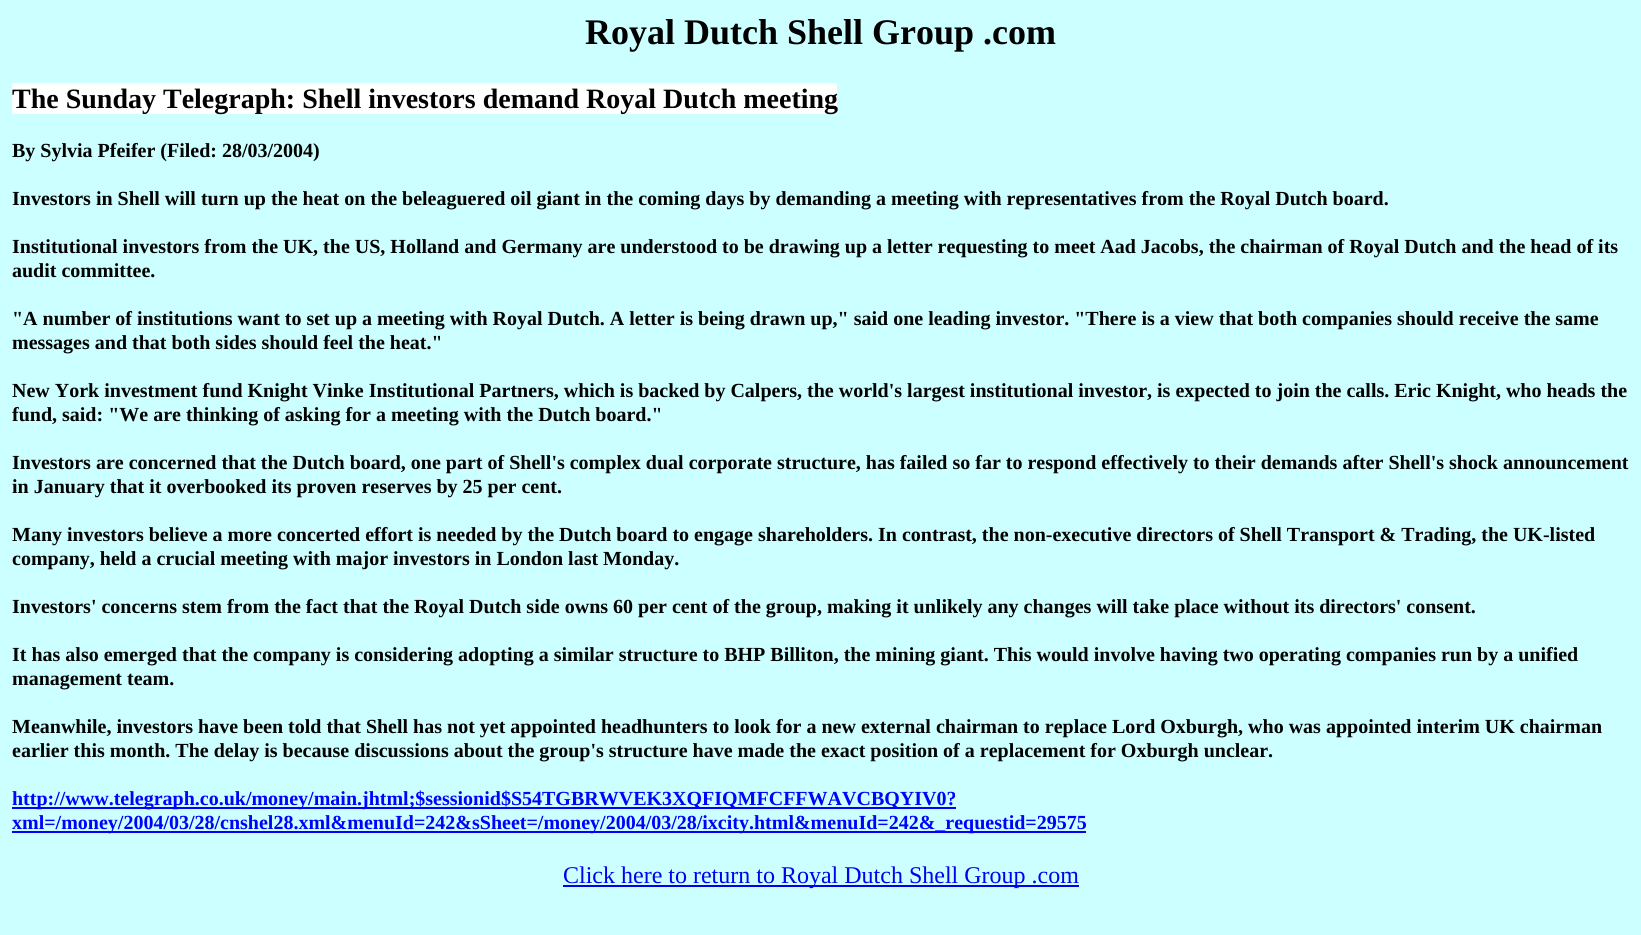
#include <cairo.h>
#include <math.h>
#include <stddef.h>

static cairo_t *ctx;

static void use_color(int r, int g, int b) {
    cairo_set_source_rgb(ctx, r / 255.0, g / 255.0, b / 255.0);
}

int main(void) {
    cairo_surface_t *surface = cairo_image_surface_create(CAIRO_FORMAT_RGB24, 1641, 935);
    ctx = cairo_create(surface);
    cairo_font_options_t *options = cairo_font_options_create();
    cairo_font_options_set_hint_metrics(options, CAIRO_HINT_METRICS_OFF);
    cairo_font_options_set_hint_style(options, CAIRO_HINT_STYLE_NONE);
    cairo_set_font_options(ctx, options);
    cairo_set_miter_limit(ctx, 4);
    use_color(204, 255, 255);
    cairo_paint(ctx);
    cairo_select_font_face(ctx, "Liberation Serif", CAIRO_FONT_SLANT_NORMAL, CAIRO_FONT_WEIGHT_BOLD);
    cairo_set_font_size(ctx, 36);
    use_color(0, 0, 0);
    cairo_move_to(ctx, 585, 44);
    cairo_show_text(ctx, "Royal Dutch Shell Group .com");
    use_color(255, 255, 255);
    cairo_rectangle(ctx, 12, 83, 825, 31);
    cairo_fill(ctx);
    cairo_set_font_size(ctx, 28);
    use_color(0, 0, 0);
    cairo_move_to(ctx, 12, 108);
    cairo_show_text(ctx, "The Sunday Telegraph: Shell investors demand Royal Dutch meeting");
    cairo_set_font_size(ctx, 20);
    cairo_move_to(ctx, 12, 157);
    cairo_show_text(ctx, "By Sylvia Pfeifer (Filed: 28/03/2004)");
    cairo_move_to(ctx, 12, 205);
    cairo_show_text(ctx, "Investors in Shell will turn up the heat on the beleaguered oil giant in the coming days by demanding a meeting with representatives from the Royal Dutch board.");
    cairo_move_to(ctx, 12, 253);
    cairo_show_text(ctx, "Institutional investors from the UK, the US, Holland and Germany are understood to be drawing up a letter requesting to meet Aad Jacobs, the chairman of Royal Dutch and the head of its");
    cairo_move_to(ctx, 12, 277);
    cairo_show_text(ctx, "audit committee.");
    cairo_move_to(ctx, 12, 325);
    cairo_show_text(ctx, "\"A number of institutions want to set up a meeting with Royal Dutch. A letter is being drawn up,\" said one leading investor. \"There is a view that both companies should receive the same");
    cairo_move_to(ctx, 12, 349);
    cairo_show_text(ctx, "messages and that both sides should feel the heat.\"");
    cairo_move_to(ctx, 12, 397);
    cairo_show_text(ctx, "New York investment fund Knight Vinke Institutional Partners, which is backed by Calpers, the world's largest institutional investor, is expected to join the calls. Eric Knight, who heads the");
    cairo_move_to(ctx, 12, 421);
    cairo_show_text(ctx, "fund, said: \"We are thinking of asking for a meeting with the Dutch board.\"");
    cairo_move_to(ctx, 12, 469);
    cairo_show_text(ctx, "Investors are concerned that the Dutch board, one part of Shell's complex dual corporate structure, has failed so far to respond effectively to their demands after Shell's shock announcement");
    cairo_move_to(ctx, 12, 493);
    cairo_show_text(ctx, "in January that it overbooked its proven reserves by 25 per cent.");
    cairo_move_to(ctx, 12, 541);
    cairo_show_text(ctx, "Many investors believe a more concerted effort is needed by the Dutch board to engage shareholders. In contrast, the non-executive directors of Shell Transport & Trading, the UK-listed");
    cairo_move_to(ctx, 12, 565);
    cairo_show_text(ctx, "company, held a crucial meeting with major investors in London last Monday.");
    cairo_move_to(ctx, 12, 613);
    cairo_show_text(ctx, "Investors' concerns stem from the fact that the Royal Dutch side owns 60 per cent of the group, making it unlikely any changes will take place without its directors' consent.");
    cairo_move_to(ctx, 12, 661);
    cairo_show_text(ctx, "It has also emerged that the company is considering adopting a similar structure to BHP Billiton, the mining giant. This would involve having two operating companies run by a unified");
    cairo_move_to(ctx, 12, 685);
    cairo_show_text(ctx, "management team.");
    cairo_move_to(ctx, 12, 733);
    cairo_show_text(ctx, "Meanwhile, investors have been told that Shell has not yet appointed headhunters to look for a new external chairman to replace Lord Oxburgh, who was appointed interim UK chairman");
    cairo_move_to(ctx, 12, 757);
    cairo_show_text(ctx, "earlier this month. The delay is because discussions about the group's structure have made the exact position of a replacement for Oxburgh unclear.");
    use_color(0, 0, 255);
    cairo_rectangle(ctx, 12, 807, 944, 2);
    cairo_fill(ctx);
    cairo_move_to(ctx, 12, 805);
    cairo_show_text(ctx, "http://www.telegraph.co.uk/money/main.jhtml;$sessionid$S54TGBRWVEK3XQFIQMFCFFWAVCBQYIV0?");
    cairo_rectangle(ctx, 12, 831, 1074, 2);
    cairo_fill(ctx);
    cairo_move_to(ctx, 12, 829);
    cairo_show_text(ctx, "xml=/money/2004/03/28/cnshel28.xml&menuId=242&sSheet=/money/2004/03/28/ixcity.html&menuId=242&_requestid=29575");
    use_color(0, 0, 238);
    cairo_rectangle(ctx, 563, 885, 516, 2);
    cairo_fill(ctx);
    cairo_select_font_face(ctx, "Liberation Serif", CAIRO_FONT_SLANT_NORMAL, CAIRO_FONT_WEIGHT_NORMAL);
    cairo_set_font_size(ctx, 24);
    cairo_move_to(ctx, 563, 883);
    cairo_show_text(ctx, "Click here to return to Royal Dutch Shell Group .com");
    cairo_surface_write_to_png(surface, "result.png");
    cairo_font_options_destroy(options);
    cairo_destroy(ctx);
    cairo_surface_destroy(surface);
    return 0;
}
